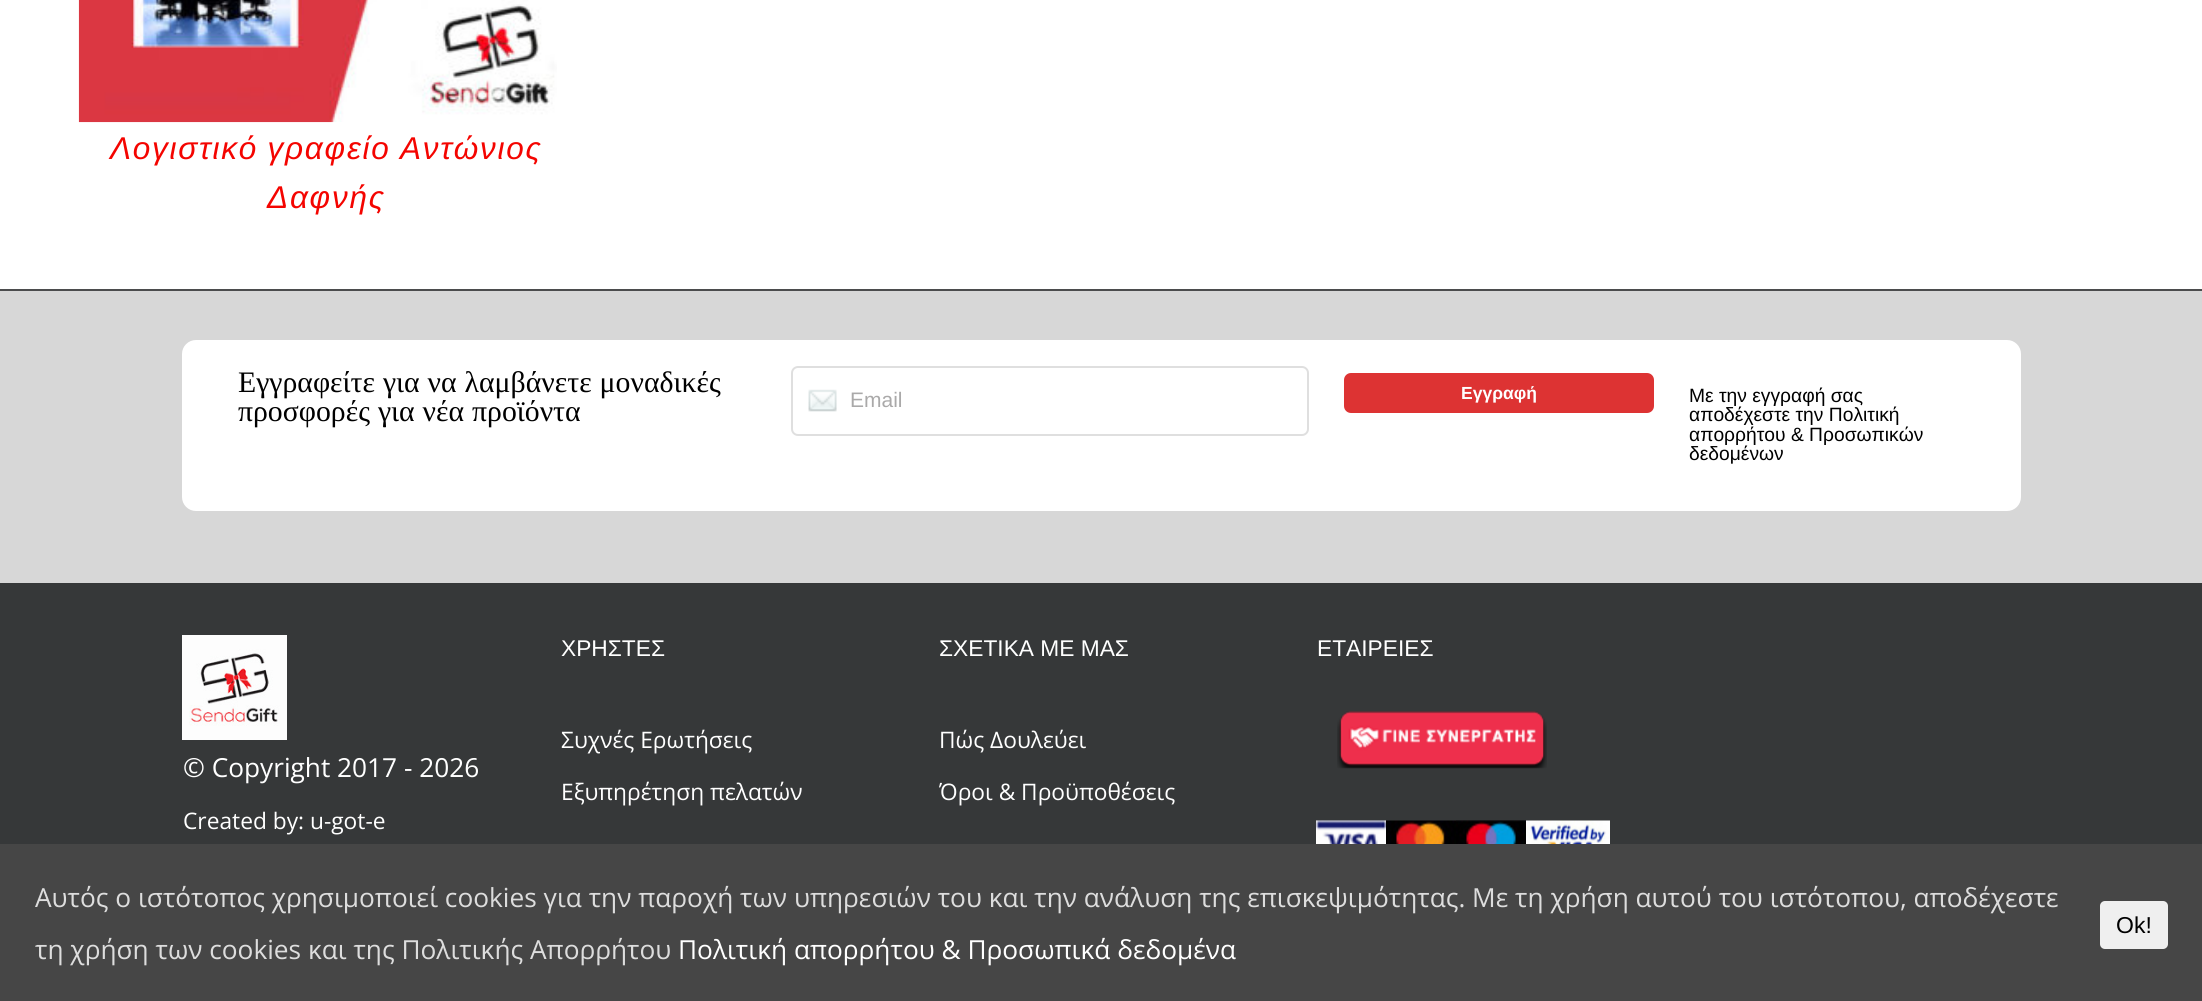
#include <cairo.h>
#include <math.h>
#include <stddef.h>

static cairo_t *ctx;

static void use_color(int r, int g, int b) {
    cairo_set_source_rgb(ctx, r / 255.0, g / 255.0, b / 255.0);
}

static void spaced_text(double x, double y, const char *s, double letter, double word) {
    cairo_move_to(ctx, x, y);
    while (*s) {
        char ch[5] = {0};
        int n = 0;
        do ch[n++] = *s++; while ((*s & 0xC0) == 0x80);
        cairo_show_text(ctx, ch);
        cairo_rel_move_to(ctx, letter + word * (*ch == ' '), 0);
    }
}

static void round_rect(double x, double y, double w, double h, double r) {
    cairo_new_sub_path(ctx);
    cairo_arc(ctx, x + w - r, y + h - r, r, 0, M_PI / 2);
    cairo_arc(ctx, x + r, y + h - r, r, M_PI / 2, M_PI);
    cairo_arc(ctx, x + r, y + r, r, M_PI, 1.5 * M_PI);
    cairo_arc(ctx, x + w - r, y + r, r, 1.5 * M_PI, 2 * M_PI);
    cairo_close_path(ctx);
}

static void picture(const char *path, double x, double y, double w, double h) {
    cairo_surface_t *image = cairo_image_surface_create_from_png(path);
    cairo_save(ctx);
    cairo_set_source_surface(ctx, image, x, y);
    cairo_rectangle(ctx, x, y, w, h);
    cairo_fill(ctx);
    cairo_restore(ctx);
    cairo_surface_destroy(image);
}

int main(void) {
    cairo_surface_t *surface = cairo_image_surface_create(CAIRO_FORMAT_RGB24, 2202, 1001);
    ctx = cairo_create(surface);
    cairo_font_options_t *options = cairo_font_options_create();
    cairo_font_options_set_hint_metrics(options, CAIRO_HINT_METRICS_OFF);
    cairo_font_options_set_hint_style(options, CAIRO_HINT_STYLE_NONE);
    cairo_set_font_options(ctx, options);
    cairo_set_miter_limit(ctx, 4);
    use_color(255, 255, 255);
    cairo_paint(ctx);
    picture("img1.png", 78, 0, 479, 123);
    cairo_select_font_face(ctx, "Liberation Sans", CAIRO_FONT_SLANT_ITALIC, CAIRO_FONT_WEIGHT_NORMAL);
    cairo_set_font_size(ctx, 31.5);
    use_color(244, 4, 0);
    spaced_text(110, 159, "Λογιστικό γραφείο Αντώνιος", 1.75, -1);
    spaced_text(267, 208, "Δαφνής", 1.75, 0);
    use_color(215, 215, 215);
    cairo_rectangle(ctx, 0, 291, 2202, 292);
    cairo_fill(ctx);
    use_color(75, 76, 77);
    cairo_rectangle(ctx, 0, 289, 2202, 2);
    cairo_fill(ctx);
    use_color(255, 255, 255);
    round_rect(182, 340, 1839, 171, 14);
    cairo_fill(ctx);
    cairo_select_font_face(ctx, "Liberation Serif", CAIRO_FONT_SLANT_NORMAL, CAIRO_FONT_WEIGHT_NORMAL);
    cairo_set_font_size(ctx, 29.75);
    use_color(0, 0, 0);
    spaced_text(238, 392, "Εγγραφείτε για να λαμβάνετε μοναδικές", 0, 0.5);
    spaced_text(238, 421, "προσφορές για νέα προϊόντα", 0, 0.5);
    picture("img2.png", 808, 389, 29, 23);
    round_rect(792, 367, 516, 68, 6);
    use_color(223, 223, 223);
    cairo_stroke(ctx);
    cairo_select_font_face(ctx, "Liberation Sans", CAIRO_FONT_SLANT_NORMAL, CAIRO_FONT_WEIGHT_NORMAL);
    cairo_set_font_size(ctx, 21);
    use_color(170, 169, 169);
    cairo_move_to(ctx, 850, 407);
    cairo_show_text(ctx, "Email");
    use_color(221, 51, 51);
    round_rect(1344, 373, 310, 40, 7);
    cairo_fill(ctx);
    cairo_select_font_face(ctx, "Liberation Sans", CAIRO_FONT_SLANT_NORMAL, CAIRO_FONT_WEIGHT_BOLD);
    cairo_set_font_size(ctx, 17.5);
    use_color(255, 255, 255);
    cairo_move_to(ctx, 1461, 399);
    cairo_show_text(ctx, "Εγγραφή");
    cairo_select_font_face(ctx, "Liberation Sans", CAIRO_FONT_SLANT_NORMAL, CAIRO_FONT_WEIGHT_NORMAL);
    cairo_set_font_size(ctx, 19.25);
    use_color(0, 0, 0);
    cairo_move_to(ctx, 1689, 402);
    cairo_show_text(ctx, "Με την εγγραφή σας");
    cairo_move_to(ctx, 1689, 421);
    cairo_show_text(ctx, "αποδέχεστε την Πολιτική");
    cairo_move_to(ctx, 1689, 441);
    cairo_show_text(ctx, "απορρήτου & Προσωπικών");
    cairo_move_to(ctx, 1689, 460);
    cairo_show_text(ctx, "δεδομένων");
    use_color(54, 56, 57);
    cairo_rectangle(ctx, 0, 583, 2202, 261);
    cairo_fill(ctx);
    cairo_set_font_size(ctx, 22.75);
    use_color(255, 255, 255);
    cairo_move_to(ctx, 561, 656);
    cairo_show_text(ctx, "ΧΡΗΣΤΕΣ");
    cairo_select_font_face(ctx, "Open Sans", CAIRO_FONT_SLANT_NORMAL, CAIRO_FONT_WEIGHT_NORMAL);
    cairo_move_to(ctx, 561, 748);
    cairo_show_text(ctx, "Συχνές Ερωτήσεις");
    cairo_move_to(ctx, 561, 800);
    cairo_show_text(ctx, "Εξυπηρέτηση πελατών");
    cairo_select_font_face(ctx, "Liberation Sans", CAIRO_FONT_SLANT_NORMAL, CAIRO_FONT_WEIGHT_NORMAL);
    cairo_move_to(ctx, 939, 656);
    cairo_show_text(ctx, "ΣΧΕΤΙΚΑ ΜΕ ΜΑΣ");
    cairo_select_font_face(ctx, "Open Sans", CAIRO_FONT_SLANT_NORMAL, CAIRO_FONT_WEIGHT_NORMAL);
    cairo_move_to(ctx, 939, 748);
    cairo_show_text(ctx, "Πώς Δουλεύει");
    cairo_move_to(ctx, 939, 800);
    cairo_show_text(ctx, "Όροι & Προϋποθέσεις");
    cairo_select_font_face(ctx, "Liberation Sans", CAIRO_FONT_SLANT_NORMAL, CAIRO_FONT_WEIGHT_NORMAL);
    cairo_move_to(ctx, 1317, 656);
    cairo_show_text(ctx, "ΕΤΑΙΡΕΙΕΣ");
    picture("img3.png", 1337, 711, 210, 58);
    picture("img4.png", 1316, 820, 70, 24);
    picture("img5.png", 1386, 820, 70, 24);
    picture("img6.png", 1456, 820, 70, 24);
    picture("img7.png", 1526, 820, 84, 24);
    picture("img8.png", 182, 635, 105, 105);
    cairo_select_font_face(ctx, "Open Sans", CAIRO_FONT_SLANT_NORMAL, CAIRO_FONT_WEIGHT_NORMAL);
    cairo_set_font_size(ctx, 26.25);
    cairo_move_to(ctx, 183, 777);
    cairo_show_text(ctx, "© Copyright 2017 - 2026");
    cairo_set_font_size(ctx, 22.75);
    cairo_move_to(ctx, 183, 829);
    cairo_show_text(ctx, "Created by: u-got-e");
    use_color(70, 70, 70);
    cairo_rectangle(ctx, 0, 844, 2202, 157);
    cairo_fill(ctx);
    cairo_set_font_size(ctx, 26.25);
    use_color(221, 221, 221);
    cairo_move_to(ctx, 35, 907);
    cairo_show_text(ctx, "Αυτός ο ιστότοπος χρησιμοποιεί cookies για την παροχή των υπηρεσιών του και την ανάλυση της επισκεψιμότητας. Με τη χρήση αυτού του ιστότοπου, αποδέχεστε");
    cairo_move_to(ctx, 35, 959);
    cairo_show_text(ctx, "τη χρήση των cookies και της Πολιτικής Απορρήτου");
    use_color(255, 255, 255);
    cairo_move_to(ctx, 678, 959);
    cairo_show_text(ctx, "Πολιτική απορρήτου & Προσωπικά δεδομένα");
    use_color(239, 239, 239);
    round_rect(2100, 901, 68, 48, 5);
    cairo_fill(ctx);
    cairo_select_font_face(ctx, "Liberation Sans", CAIRO_FONT_SLANT_NORMAL, CAIRO_FONT_WEIGHT_NORMAL);
    cairo_set_font_size(ctx, 23);
    use_color(0, 0, 0);
    cairo_move_to(ctx, 2116, 933);
    cairo_show_text(ctx, "Ok!");
    cairo_surface_write_to_png(surface, "result.png");
    cairo_font_options_destroy(options);
    cairo_destroy(ctx);
    cairo_surface_destroy(surface);
    return 0;
}
